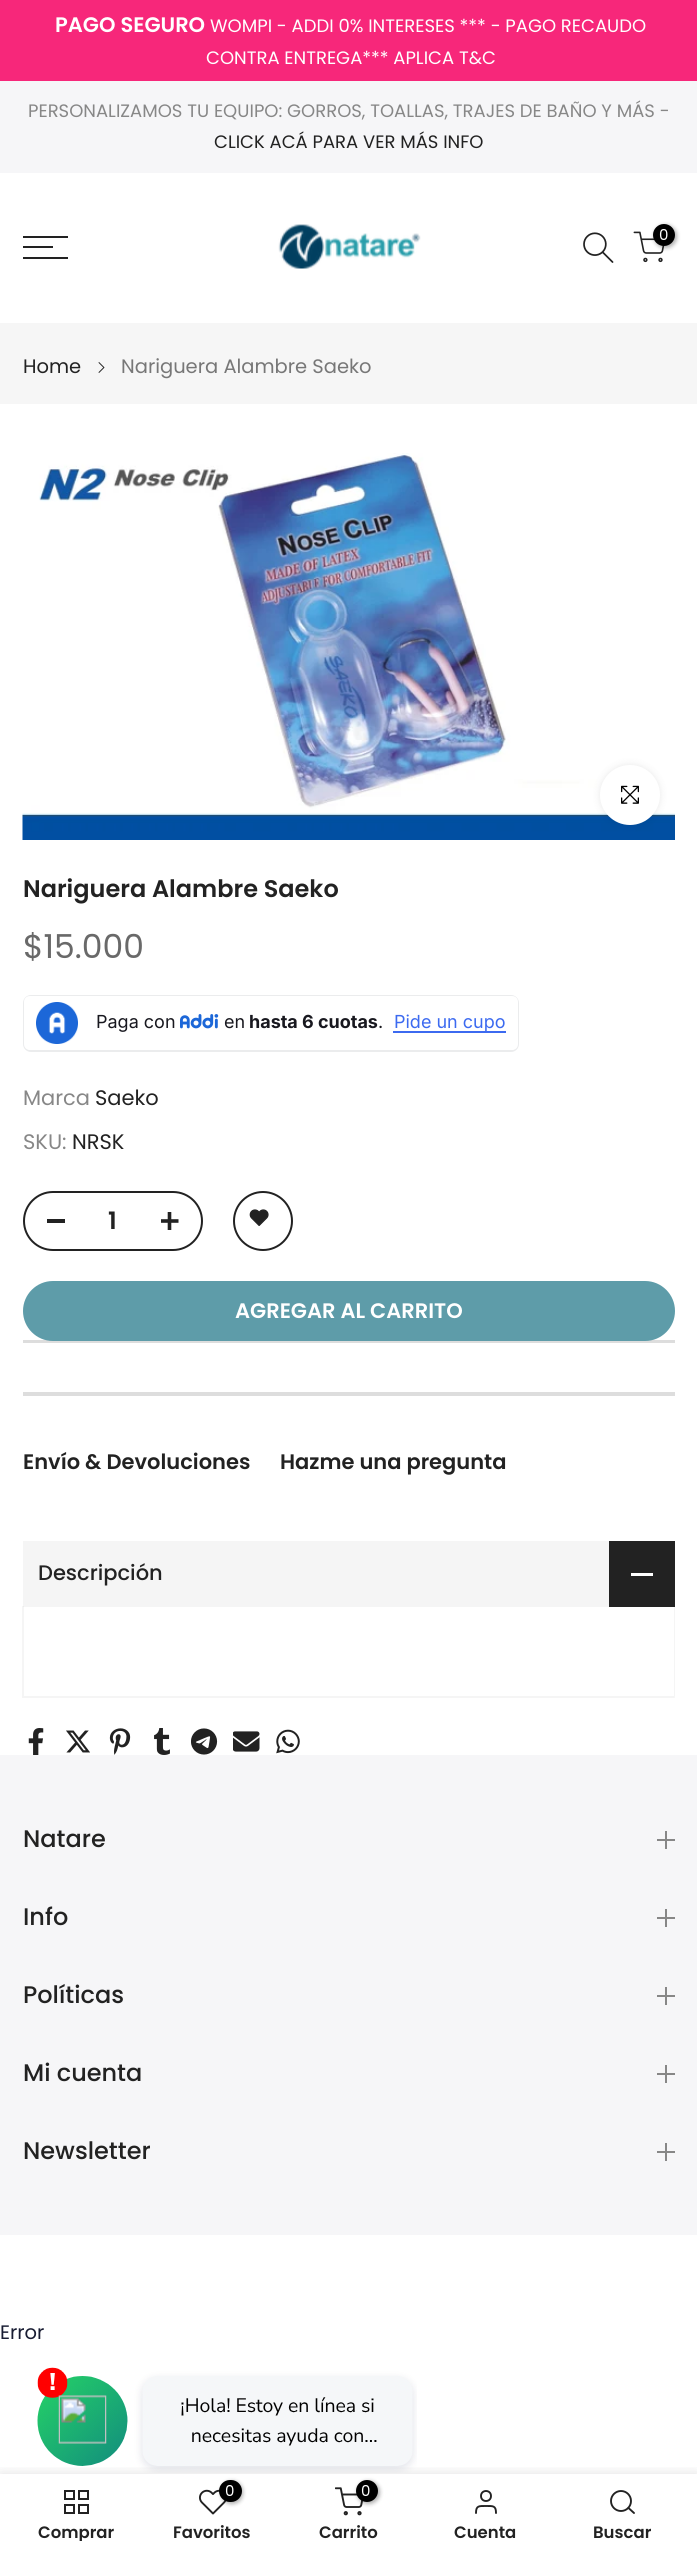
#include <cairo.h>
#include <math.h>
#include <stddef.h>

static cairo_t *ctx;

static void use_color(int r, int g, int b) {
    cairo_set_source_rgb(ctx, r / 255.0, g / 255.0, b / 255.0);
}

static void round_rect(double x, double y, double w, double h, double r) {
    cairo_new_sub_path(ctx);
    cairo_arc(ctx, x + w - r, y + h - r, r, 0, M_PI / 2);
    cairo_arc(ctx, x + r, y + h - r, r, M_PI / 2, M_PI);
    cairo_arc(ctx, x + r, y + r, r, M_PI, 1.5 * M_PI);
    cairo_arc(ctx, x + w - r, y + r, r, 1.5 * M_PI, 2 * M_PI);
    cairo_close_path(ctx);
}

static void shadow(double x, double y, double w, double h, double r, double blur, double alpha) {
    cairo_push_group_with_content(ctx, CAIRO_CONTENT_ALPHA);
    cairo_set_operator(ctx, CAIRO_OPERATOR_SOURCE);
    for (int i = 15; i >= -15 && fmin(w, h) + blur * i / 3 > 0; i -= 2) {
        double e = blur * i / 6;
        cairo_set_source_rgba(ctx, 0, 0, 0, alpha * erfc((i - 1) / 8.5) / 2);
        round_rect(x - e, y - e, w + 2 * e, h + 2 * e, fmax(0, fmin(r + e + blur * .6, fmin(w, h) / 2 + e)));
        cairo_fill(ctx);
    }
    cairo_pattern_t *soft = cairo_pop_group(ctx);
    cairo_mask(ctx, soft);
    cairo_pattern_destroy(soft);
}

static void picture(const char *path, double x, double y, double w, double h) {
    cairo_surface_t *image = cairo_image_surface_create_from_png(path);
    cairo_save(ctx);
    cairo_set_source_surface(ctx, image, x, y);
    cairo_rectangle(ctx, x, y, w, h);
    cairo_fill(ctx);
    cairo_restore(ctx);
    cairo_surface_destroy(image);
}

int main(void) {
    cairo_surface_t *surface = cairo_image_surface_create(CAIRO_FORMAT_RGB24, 697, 2556);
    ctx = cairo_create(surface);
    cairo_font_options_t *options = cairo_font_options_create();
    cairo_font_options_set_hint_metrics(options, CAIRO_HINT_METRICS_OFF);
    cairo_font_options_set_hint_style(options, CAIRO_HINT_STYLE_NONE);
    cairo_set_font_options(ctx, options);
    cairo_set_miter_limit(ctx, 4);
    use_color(255, 255, 255);
    cairo_paint(ctx);
    use_color(247, 39, 122);
    cairo_rectangle(ctx, 0, 0, 697, 81);
    cairo_fill(ctx);
    cairo_select_font_face(ctx, "Poppins SemiBold", CAIRO_FONT_SLANT_NORMAL, CAIRO_FONT_WEIGHT_NORMAL);
    cairo_set_font_size(ctx, 21);
    use_color(255, 255, 255);
    cairo_move_to(ctx, 55, 32);
    cairo_show_text(ctx, "PAGO SEGURO");
    cairo_select_font_face(ctx, "Poppins", CAIRO_FONT_SLANT_NORMAL, CAIRO_FONT_WEIGHT_NORMAL);
    cairo_set_font_size(ctx, 18);
    cairo_move_to(ctx, 210, 32);
    cairo_show_text(ctx, "WOMPI - ADDI 0% INTERESES *** - PAGO RECAUDO");
    cairo_move_to(ctx, 206, 64);
    cairo_show_text(ctx, "CONTRA ENTREGA*** APLICA T&C");
    use_color(246, 246, 248);
    cairo_rectangle(ctx, 0, 81, 697, 92);
    cairo_fill(ctx);
    use_color(135, 135, 135);
    cairo_move_to(ctx, 28, 117);
    cairo_show_text(ctx, "PERSONALIZAMOS TU EQUIPO: GORROS, TOALLAS, TRAJES DE BAÑO Y MÁS -");
    use_color(34, 34, 34);
    cairo_move_to(ctx, 214, 148);
    cairo_show_text(ctx, "CLICK ACÁ PARA VER MÁS INFO");
    picture("img1.png", 278, 224, 143, 45);
    picture("img2.png", 583, 232, 31, 31);
    picture("img3.png", 633, 231, 32, 32);
    use_color(0, 0, 0);
    shadow(654, 225, 23, 23, 11.5, 2, 0.3);
    use_color(0, 0, 0);
    cairo_arc(ctx, 664, 235, 11, 0, 2 * M_PI);
    cairo_fill(ctx);
    cairo_set_font_size(ctx, 15);
    use_color(255, 255, 255);
    cairo_move_to(ctx, 659, 240);
    cairo_show_text(ctx, "0");
    use_color(34, 34, 34);
    cairo_rectangle(ctx, 23, 236, 45, 2);
    cairo_fill(ctx);
    cairo_rectangle(ctx, 23, 246, 30, 2);
    cairo_fill(ctx);
    cairo_rectangle(ctx, 23, 257, 45, 2);
    cairo_fill(ctx);
    use_color(246, 246, 246);
    cairo_rectangle(ctx, 0, 323, 697, 81);
    cairo_fill(ctx);
    cairo_set_font_size(ctx, 19.5);
    use_color(34, 34, 34);
    cairo_move_to(ctx, 23, 373);
    cairo_show_text(ctx, "Home");
    picture("img4.png", 98, 362, 7, 11);
    use_color(119, 119, 119);
    cairo_move_to(ctx, 121, 373);
    cairo_show_text(ctx, "Nariguera Alambre Saeko");
    picture("img5.png", 22, 453, 653, 387);
    use_color(0, 0, 0);
    shadow(600, 765, 60, 60, 30, 4, 0.09);
    use_color(255, 255, 255);
    cairo_arc(ctx, 630, 795, 30, 0, 2 * M_PI);
    cairo_fill(ctx);
    picture("img6.png", 621, 785, 18, 19);
    cairo_select_font_face(ctx, "Poppins SemiBold", CAIRO_FONT_SLANT_NORMAL, CAIRO_FONT_WEIGHT_NORMAL);
    cairo_set_font_size(ctx, 24);
    use_color(34, 34, 34);
    cairo_move_to(ctx, 23, 897);
    cairo_show_text(ctx, "Nariguera Alambre Saeko");
    cairo_select_font_face(ctx, "Poppins", CAIRO_FONT_SLANT_NORMAL, CAIRO_FONT_WEIGHT_NORMAL);
    cairo_set_font_size(ctx, 33);
    use_color(105, 105, 105);
    cairo_move_to(ctx, 23, 958);
    cairo_show_text(ctx, "$15.000");
    round_rect(24, 996, 494, 55, 7);
    use_color(235, 236, 237);
    cairo_stroke(ctx);
    use_color(255, 255, 255);
    cairo_new_path(ctx);
    cairo_move_to(ctx, 30, 996);
    cairo_line_to(ctx, 90, 996);
    cairo_line_to(ctx, 90, 1050);
    cairo_line_to(ctx, 30, 1050);
    cairo_curve_to(ctx, 26.5, 1050, 24, 1047.5, 24, 1044);
    cairo_line_to(ctx, 24, 1002);
    cairo_curve_to(ctx, 24, 998.5, 26.5, 996, 30, 996);
    cairo_close_path(ctx);
    cairo_fill(ctx);
    picture("img7.png", 36, 1002, 42, 42);
    cairo_new_path(ctx);
    cairo_move_to(ctx, 90, 996);
    cairo_line_to(ctx, 512, 996);
    cairo_curve_to(ctx, 515.5, 996, 518, 998.5, 518, 1002);
    cairo_line_to(ctx, 518, 1044);
    cairo_curve_to(ctx, 518, 1047.5, 515.5, 1050, 512, 1050);
    cairo_line_to(ctx, 90, 1050);
    cairo_close_path(ctx);
    cairo_fill(ctx);
    cairo_select_font_face(ctx, "Inter", CAIRO_FONT_SLANT_NORMAL, CAIRO_FONT_WEIGHT_NORMAL);
    cairo_set_font_size(ctx, 18);
    use_color(24, 24, 31);
    cairo_move_to(ctx, 96, 1028);
    cairo_show_text(ctx, "Paga con");
    picture("img8.png", 180, 1014, 39, 15);
    cairo_move_to(ctx, 224, 1028);
    cairo_show_text(ctx, "en");
    cairo_select_font_face(ctx, "Inter", CAIRO_FONT_SLANT_NORMAL, CAIRO_FONT_WEIGHT_BOLD);
    cairo_move_to(ctx, 249, 1028);
    cairo_show_text(ctx, "hasta 6 cuotas");
    cairo_select_font_face(ctx, "Inter", CAIRO_FONT_SLANT_NORMAL, CAIRO_FONT_WEIGHT_NORMAL);
    cairo_move_to(ctx, 378, 1028);
    cairo_show_text(ctx, ".");
    use_color(60, 106, 240);
    cairo_rectangle(ctx, 393, 1031, 113, 2);
    cairo_fill(ctx);
    cairo_move_to(ctx, 394, 1028);
    cairo_show_text(ctx, "Pide un cupo");
    cairo_select_font_face(ctx, "Poppins", CAIRO_FONT_SLANT_NORMAL, CAIRO_FONT_WEIGHT_NORMAL);
    cairo_set_font_size(ctx, 21);
    use_color(135, 135, 135);
    cairo_move_to(ctx, 23, 1105);
    cairo_show_text(ctx, "Marca");
    use_color(34, 34, 34);
    cairo_move_to(ctx, 95, 1105);
    cairo_show_text(ctx, "Saeko");
    use_color(135, 135, 135);
    cairo_move_to(ctx, 23, 1149);
    cairo_show_text(ctx, "SKU:");
    use_color(34, 34, 34);
    cairo_move_to(ctx, 72, 1149);
    cairo_show_text(ctx, "NRSK");
    round_rect(24, 1192, 178, 58, 29);
    cairo_stroke(ctx);
    cairo_rectangle(ctx, 47, 1219, 18, 4);
    cairo_fill(ctx);
    cairo_select_font_face(ctx, "Poppins SemiBold", CAIRO_FONT_SLANT_NORMAL, CAIRO_FONT_WEIGHT_NORMAL);
    cairo_set_font_size(ctx, 24);
    cairo_move_to(ctx, 108, 1229);
    cairo_show_text(ctx, "1");
    picture("img9.png", 161, 1212, 18, 18);
    cairo_arc(ctx, 263, 1221, 29, 0, 2 * M_PI);
    cairo_stroke(ctx);
    picture("img10.png", 249, 1209, 20, 17);
    use_color(221, 221, 221);
    cairo_rectangle(ctx, 23, 1340, 652, 3);
    cairo_fill(ctx);
    use_color(94, 156, 169);
    round_rect(23, 1281, 652, 60, 30);
    cairo_fill(ctx);
    cairo_set_font_size(ctx, 21);
    use_color(255, 255, 255);
    cairo_move_to(ctx, 235, 1318);
    cairo_show_text(ctx, "AGREGAR AL CARRITO");
    use_color(221, 221, 221);
    cairo_rectangle(ctx, 23, 1392, 652, 4);
    cairo_fill(ctx);
    use_color(34, 34, 34);
    cairo_move_to(ctx, 23, 1469);
    cairo_show_text(ctx, "Envío & Devoluciones");
    cairo_move_to(ctx, 280, 1469);
    cairo_show_text(ctx, "Hazme una pregunta");
    use_color(245, 245, 245);
    cairo_rectangle(ctx, 23, 1541, 586, 66);
    cairo_fill(ctx);
    cairo_select_font_face(ctx, "Poppins Medium", CAIRO_FONT_SLANT_NORMAL, CAIRO_FONT_WEIGHT_NORMAL);
    use_color(34, 34, 34);
    cairo_move_to(ctx, 38, 1580);
    cairo_show_text(ctx, "Descripción");
    cairo_set_source_rgba(ctx, 0.529, 0.529, 0.529, 0.08);
    cairo_new_path(ctx);
    cairo_move_to(ctx, 675, 1606);
    cairo_line_to(ctx, 675, 1698);
    cairo_line_to(ctx, 674, 1696);
    cairo_line_to(ctx, 674, 1606);
    cairo_close_path(ctx);
    cairo_fill(ctx);
    use_color(34, 34, 34);
    cairo_rectangle(ctx, 609, 1541, 66, 66);
    cairo_fill(ctx);
    use_color(255, 255, 255);
    cairo_rectangle(ctx, 631, 1573, 22, 3);
    cairo_fill(ctx);
    use_color(245, 245, 245);
    cairo_new_path(ctx);
    cairo_move_to(ctx, 675, 1698);
    cairo_line_to(ctx, 22, 1698);
    cairo_line_to(ctx, 24, 1696);
    cairo_line_to(ctx, 674, 1696);
    cairo_close_path(ctx);
    cairo_fill(ctx);
    cairo_set_source_rgba(ctx, 0.529, 0.529, 0.529, 0.08);
    cairo_new_path(ctx);
    cairo_move_to(ctx, 22, 1698);
    cairo_line_to(ctx, 22, 1606);
    cairo_line_to(ctx, 24, 1606);
    cairo_line_to(ctx, 24, 1696);
    cairo_close_path(ctx);
    cairo_fill(ctx);
    picture("img11.png", 28, 1728, 16, 27);
    picture("img12.png", 66, 1730, 24, 23);
    picture("img13.png", 109, 1728, 22, 27);
    picture("img14.png", 154, 1728, 16, 27);
    picture("img15.png", 191, 1728, 27, 27);
    picture("img16.png", 233, 1731, 27, 21);
    picture("img17.png", 276, 1729, 24, 25);
    use_color(246, 246, 248);
    cairo_rectangle(ctx, 0, 1755, 697, 480);
    cairo_fill(ctx);
    cairo_set_font_size(ctx, 24);
    use_color(34, 34, 34);
    cairo_move_to(ctx, 23, 1847);
    cairo_show_text(ctx, "Natare");
    use_color(135, 135, 135);
    cairo_rectangle(ctx, 665, 1831, 2, 18);
    cairo_fill(ctx);
    cairo_rectangle(ctx, 657, 1839, 18, 2);
    cairo_fill(ctx);
    use_color(34, 34, 34);
    cairo_move_to(ctx, 23, 1925);
    cairo_show_text(ctx, "Info");
    use_color(135, 135, 135);
    cairo_rectangle(ctx, 665, 1909, 2, 18);
    cairo_fill(ctx);
    cairo_rectangle(ctx, 657, 1917, 18, 2);
    cairo_fill(ctx);
    use_color(34, 34, 34);
    cairo_move_to(ctx, 23, 2003);
    cairo_show_text(ctx, "Políticas");
    use_color(135, 135, 135);
    cairo_rectangle(ctx, 665, 1987, 2, 18);
    cairo_fill(ctx);
    cairo_rectangle(ctx, 657, 1995, 18, 2);
    cairo_fill(ctx);
    use_color(34, 34, 34);
    cairo_move_to(ctx, 23, 2081);
    cairo_show_text(ctx, "Mi cuenta");
    use_color(135, 135, 135);
    cairo_rectangle(ctx, 665, 2065, 2, 18);
    cairo_fill(ctx);
    cairo_rectangle(ctx, 657, 2073, 18, 2);
    cairo_fill(ctx);
    use_color(34, 34, 34);
    cairo_move_to(ctx, 23, 2159);
    cairo_show_text(ctx, "Newsletter");
    use_color(135, 135, 135);
    cairo_rectangle(ctx, 665, 2143, 2, 18);
    cairo_fill(ctx);
    cairo_rectangle(ctx, 657, 2151, 18, 2);
    cairo_fill(ctx);
    cairo_select_font_face(ctx, "Poppins", CAIRO_FONT_SLANT_NORMAL, CAIRO_FONT_WEIGHT_NORMAL);
    cairo_set_font_size(ctx, 19.5);
    use_color(24, 28, 50);
    cairo_move_to(ctx, 0, 2339);
    cairo_show_text(ctx, "Error");
    cairo_save(ctx);
    cairo_rectangle(ctx, 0, 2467, 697, 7);
    cairo_clip(ctx);
    use_color(0, 0, 0);
    shadow(0, 2474, 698, 82, 0, 7, 0.12);
    cairo_restore(ctx);
    picture("img18.png", 37, 2367, 380, 106);
    cairo_rectangle(ctx, 65, 2491, 9, 8);
    use_color(34, 34, 34);
    cairo_stroke(ctx);
    cairo_rectangle(ctx, 79, 2491, 9, 8);
    cairo_stroke(ctx);
    cairo_rectangle(ctx, 65, 2505, 9, 8);
    cairo_stroke(ctx);
    cairo_rectangle(ctx, 79, 2505, 9, 8);
    cairo_stroke(ctx);
    cairo_save(ctx);
    cairo_rectangle(ctx, 23, 2525, 106, 16);
    cairo_clip(ctx);
    cairo_select_font_face(ctx, "Poppins SemiBold", CAIRO_FONT_SLANT_NORMAL, CAIRO_FONT_WEIGHT_NORMAL);
    cairo_set_font_size(ctx, 16.5);
    cairo_move_to(ctx, 38, 2538);
    cairo_show_text(ctx, "Comprar");
    cairo_restore(ctx);
    picture("img19.png", 199, 2489, 28, 26);
    use_color(0, 0, 0);
    shadow(221, 2481, 22, 23, 11, 2, 0.3);
    use_color(0, 0, 0);
    round_rect(219, 2480, 23, 22, 11);
    cairo_fill(ctx);
    cairo_set_font_size(ctx, 15);
    use_color(255, 255, 255);
    cairo_move_to(ctx, 225, 2496);
    cairo_show_text(ctx, "0");
    cairo_select_font_face(ctx, "Poppins SemiBold", CAIRO_FONT_SLANT_NORMAL, CAIRO_FONT_WEIGHT_NORMAL);
    cairo_set_font_size(ctx, 16.5);
    use_color(34, 34, 34);
    cairo_move_to(ctx, 173, 2538);
    cairo_show_text(ctx, "Favoritos");
    picture("img20.png", 335, 2487, 28, 29);
    use_color(0, 0, 0);
    shadow(357, 2481, 23, 23, 11.5, 2, 0.3);
    use_color(0, 0, 0);
    cairo_arc(ctx, 367, 2491, 11, 0, 2 * M_PI);
    cairo_fill(ctx);
    cairo_select_font_face(ctx, "Poppins", CAIRO_FONT_SLANT_NORMAL, CAIRO_FONT_WEIGHT_NORMAL);
    cairo_set_font_size(ctx, 15);
    use_color(255, 255, 255);
    cairo_move_to(ctx, 361, 2496);
    cairo_show_text(ctx, "0");
    cairo_select_font_face(ctx, "Poppins SemiBold", CAIRO_FONT_SLANT_NORMAL, CAIRO_FONT_WEIGHT_NORMAL);
    cairo_set_font_size(ctx, 16.5);
    use_color(34, 34, 34);
    cairo_move_to(ctx, 319, 2538);
    cairo_show_text(ctx, "Carrito");
    cairo_new_path(ctx);
    cairo_arc(ctx, 486, 2496, 5, 0, 2 * M_PI);
    cairo_set_line_width(ctx, 1.9);
    cairo_stroke(ctx);
    cairo_new_path(ctx);
    cairo_move_to(ctx, 496, 2513);
    cairo_curve_to(ctx, 496, 2505.5, 493, 2506, 486, 2506);
    cairo_curve_to(ctx, 479, 2506, 476, 2505.5, 476, 2513);
    cairo_set_line_cap(ctx, CAIRO_LINE_CAP_ROUND);
    cairo_set_line_join(ctx, CAIRO_LINE_JOIN_ROUND);
    cairo_stroke(ctx);
    cairo_move_to(ctx, 454, 2538);
    cairo_show_text(ctx, "Cuenta");
    cairo_new_path(ctx);
    cairo_arc(ctx, 621, 2501, 10, 0, 2 * M_PI);
    cairo_set_line_cap(ctx, CAIRO_LINE_CAP_BUTT);
    cairo_set_line_join(ctx, CAIRO_LINE_JOIN_MITER);
    cairo_stroke(ctx);
    cairo_new_path(ctx);
    cairo_move_to(ctx, 634, 2513);
    cairo_line_to(ctx, 628.5, 2508);
    cairo_set_line_cap(ctx, CAIRO_LINE_CAP_ROUND);
    cairo_set_line_join(ctx, CAIRO_LINE_JOIN_ROUND);
    cairo_stroke(ctx);
    cairo_move_to(ctx, 593, 2538);
    cairo_show_text(ctx, "Buscar");
    cairo_surface_write_to_png(surface, "result.png");
    cairo_font_options_destroy(options);
    cairo_destroy(ctx);
    cairo_surface_destroy(surface);
    return 0;
}
